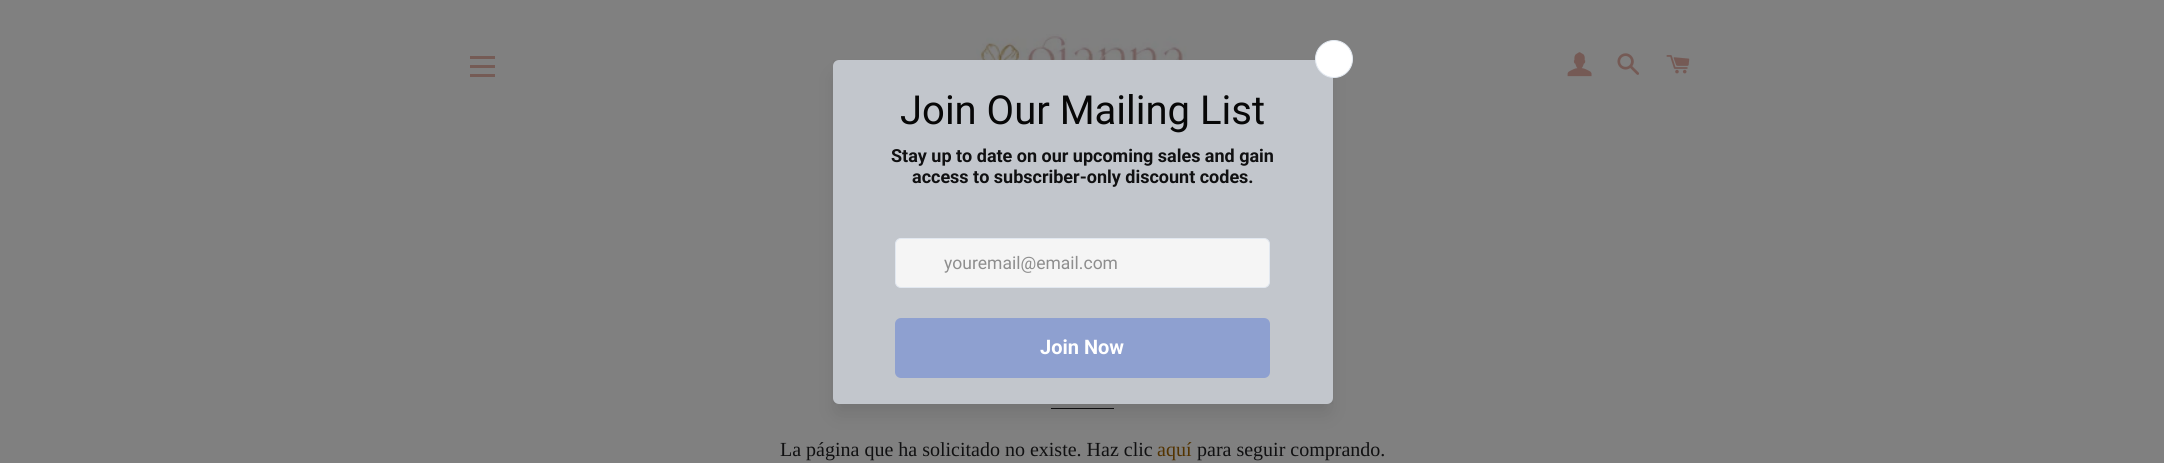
#include <cairo.h>
#include <math.h>
#include <stddef.h>

static cairo_t *ctx;

static void use_color(int r, int g, int b) {
    cairo_set_source_rgb(ctx, r / 255.0, g / 255.0, b / 255.0);
}

static void round_rect(double x, double y, double w, double h, double r) {
    cairo_new_sub_path(ctx);
    cairo_arc(ctx, x + w - r, y + h - r, r, 0, M_PI / 2);
    cairo_arc(ctx, x + r, y + h - r, r, M_PI / 2, M_PI);
    cairo_arc(ctx, x + r, y + r, r, M_PI, 1.5 * M_PI);
    cairo_arc(ctx, x + w - r, y + r, r, 1.5 * M_PI, 2 * M_PI);
    cairo_close_path(ctx);
}

static void shadow(double x, double y, double w, double h, double r, double blur, double alpha) {
    cairo_push_group_with_content(ctx, CAIRO_CONTENT_ALPHA);
    cairo_set_operator(ctx, CAIRO_OPERATOR_SOURCE);
    for (int i = 15; i >= -15 && fmin(w, h) + blur * i / 3 > 0; i -= 2) {
        double e = blur * i / 6;
        cairo_set_source_rgba(ctx, 0, 0, 0, alpha * erfc((i - 1) / 8.5) / 2);
        round_rect(x - e, y - e, w + 2 * e, h + 2 * e, fmax(0, fmin(r + e + blur * .6, fmin(w, h) / 2 + e)));
        cairo_fill(ctx);
    }
    cairo_pattern_t *soft = cairo_pop_group(ctx);
    cairo_mask(ctx, soft);
    cairo_pattern_destroy(soft);
}

static void picture(const char *path, double x, double y, double w, double h) {
    cairo_surface_t *image = cairo_image_surface_create_from_png(path);
    cairo_save(ctx);
    cairo_set_source_surface(ctx, image, x, y);
    cairo_rectangle(ctx, x, y, w, h);
    cairo_fill(ctx);
    cairo_restore(ctx);
    cairo_surface_destroy(image);
}

int main(void) {
    cairo_surface_t *surface = cairo_image_surface_create(CAIRO_FORMAT_RGB24, 2164, 463);
    ctx = cairo_create(surface);
    cairo_font_options_t *options = cairo_font_options_create();
    cairo_font_options_set_hint_metrics(options, CAIRO_HINT_METRICS_OFF);
    cairo_font_options_set_hint_style(options, CAIRO_HINT_STYLE_NONE);
    cairo_set_font_options(ctx, options);
    cairo_set_miter_limit(ctx, 4);
    use_color(128, 128, 128);
    cairo_paint(ctx);
    picture("img1.png", 973, 34, 214, 26);
    use_color(117, 91, 85);
    cairo_rectangle(ctx, 470, 56, 25, 3);
    cairo_fill(ctx);
    cairo_rectangle(ctx, 470, 65, 25, 3);
    cairo_fill(ctx);
    cairo_rectangle(ctx, 470, 74, 25, 3);
    cairo_fill(ctx);
    picture("img2.png", 1567, 52, 25, 25);
    picture("img3.png", 1617, 53, 22, 22);
    picture("img4.png", 1666, 55, 24, 19);
    use_color(16, 16, 17);
    cairo_rectangle(ctx, 1051, 408, 63, 1);
    cairo_fill(ctx);
    use_color(0, 0, 0);
    shadow(836, 76, 493, 337, 2.5, 9.5, 0.1);
    cairo_save(ctx);
    cairo_rectangle(ctx, 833, 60, 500, 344);
    cairo_clip(ctx);
    shadow(836, 64, 493, 336, 2.5, 12.5, 0.12);
    cairo_restore(ctx);
    use_color(194, 198, 204);
    round_rect(833, 60, 500, 344, 6);
    cairo_fill(ctx);
    use_color(255, 255, 255);
    cairo_arc(ctx, 1334, 59, 18.5, 0, 2 * M_PI);
    cairo_fill_preserve(ctx);
    use_color(226, 232, 240);
    cairo_set_line_width(ctx, 1);
    cairo_stroke(ctx);
    cairo_select_font_face(ctx, "Roboto", CAIRO_FONT_SLANT_NORMAL, CAIRO_FONT_WEIGHT_NORMAL);
    cairo_set_font_size(ctx, 40);
    use_color(7, 7, 7);
    cairo_move_to(ctx, 900, 124);
    cairo_show_text(ctx, "Join Our Mailing List");
    cairo_select_font_face(ctx, "Roboto", CAIRO_FONT_SLANT_NORMAL, CAIRO_FONT_WEIGHT_BOLD);
    cairo_set_font_size(ctx, 18);
    use_color(16, 16, 17);
    cairo_move_to(ctx, 891, 162);
    cairo_show_text(ctx, "Stay up to date on our upcoming sales and gain");
    cairo_move_to(ctx, 912, 183);
    cairo_show_text(ctx, "access to subscriber-only discount codes.");
    use_color(245, 245, 245);
    round_rect(895.5, 238.5, 374, 49, 5.5);
    cairo_fill_preserve(ctx);
    use_color(226, 232, 240);
    cairo_stroke(ctx);
    cairo_select_font_face(ctx, "Roboto", CAIRO_FONT_SLANT_NORMAL, CAIRO_FONT_WEIGHT_NORMAL);
    cairo_set_font_size(ctx, 17.5);
    use_color(142, 142, 142);
    cairo_move_to(ctx, 944, 269);
    cairo_show_text(ctx, "youremail@email.com");
    use_color(142, 160, 208);
    round_rect(895, 318, 375, 60, 6);
    cairo_fill(ctx);
    cairo_select_font_face(ctx, "Roboto", CAIRO_FONT_SLANT_NORMAL, CAIRO_FONT_WEIGHT_BOLD);
    cairo_set_font_size(ctx, 20);
    use_color(255, 255, 255);
    cairo_move_to(ctx, 1040, 354);
    cairo_show_text(ctx, "Join Now");
    cairo_select_font_face(ctx, "Liberation Serif", CAIRO_FONT_SLANT_NORMAL, CAIRO_FONT_WEIGHT_NORMAL);
    use_color(16, 16, 17);
    cairo_move_to(ctx, 780, 456);
    cairo_show_text(ctx, "La página que ha solicitado no existe. Haz clic");
    use_color(83, 51, 0);
    cairo_move_to(ctx, 1157, 456);
    cairo_show_text(ctx, "aquí");
    use_color(16, 16, 17);
    cairo_move_to(ctx, 1197, 456);
    cairo_show_text(ctx, "para seguir comprando.");
    cairo_surface_write_to_png(surface, "result.png");
    cairo_font_options_destroy(options);
    cairo_destroy(ctx);
    cairo_surface_destroy(surface);
    return 0;
}
